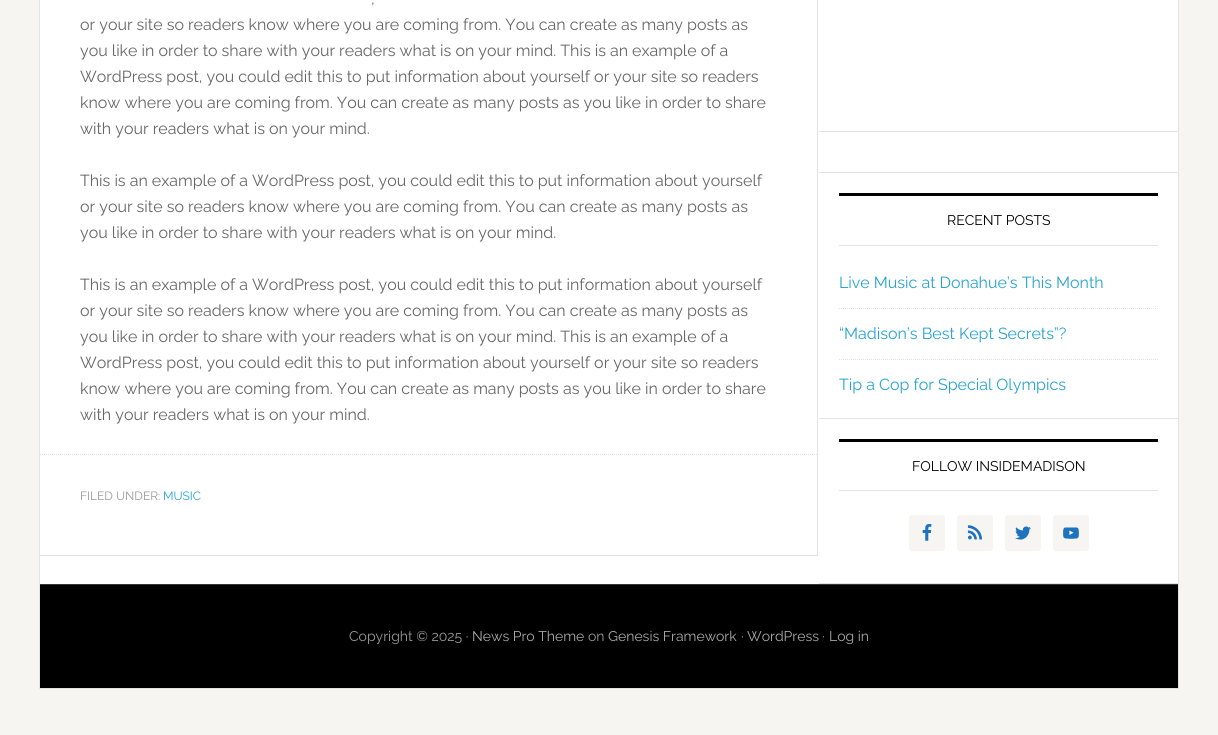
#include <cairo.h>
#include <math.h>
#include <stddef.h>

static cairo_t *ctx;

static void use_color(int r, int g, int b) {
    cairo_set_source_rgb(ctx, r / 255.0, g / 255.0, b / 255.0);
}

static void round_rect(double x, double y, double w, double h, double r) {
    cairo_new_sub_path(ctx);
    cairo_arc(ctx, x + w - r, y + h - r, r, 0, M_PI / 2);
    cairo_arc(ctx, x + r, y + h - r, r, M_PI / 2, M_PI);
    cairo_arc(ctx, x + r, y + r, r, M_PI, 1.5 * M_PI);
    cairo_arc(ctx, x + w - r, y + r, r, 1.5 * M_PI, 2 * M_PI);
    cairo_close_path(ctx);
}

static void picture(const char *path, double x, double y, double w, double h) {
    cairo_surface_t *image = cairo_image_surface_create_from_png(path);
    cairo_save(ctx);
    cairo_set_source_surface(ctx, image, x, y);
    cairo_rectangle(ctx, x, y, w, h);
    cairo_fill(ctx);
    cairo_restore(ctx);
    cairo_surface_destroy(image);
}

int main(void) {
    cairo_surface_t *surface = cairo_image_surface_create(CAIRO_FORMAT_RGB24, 1218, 735);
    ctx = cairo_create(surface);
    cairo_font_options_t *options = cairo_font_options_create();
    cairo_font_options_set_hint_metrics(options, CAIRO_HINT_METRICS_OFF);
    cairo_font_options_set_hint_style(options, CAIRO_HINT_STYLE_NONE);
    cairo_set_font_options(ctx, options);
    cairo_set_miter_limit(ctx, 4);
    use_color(246, 245, 242);
    cairo_paint(ctx);
    use_color(255, 255, 255);
    cairo_rectangle(ctx, 40, 0, 1138, 584);
    cairo_fill(ctx);
    cairo_rectangle(ctx, 39.5, -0.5, 1139, 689);
    use_color(227, 227, 227);
    cairo_set_line_width(ctx, 1);
    cairo_stroke(ctx);
    cairo_rectangle(ctx, 817, 0, 1, 556);
    cairo_fill(ctx);
    cairo_rectangle(ctx, 40, 555, 777, 1);
    cairo_fill(ctx);
    cairo_select_font_face(ctx, "Raleway", CAIRO_FONT_SLANT_NORMAL, CAIRO_FONT_WEIGHT_NORMAL);
    cairo_set_font_size(ctx, 16);
    use_color(102, 102, 102);
    cairo_move_to(ctx, 371, 4);
    cairo_show_text(ctx, ",");
    cairo_move_to(ctx, 80, 30);
    cairo_show_text(ctx, "or your site so readers know where you are coming from. You can create as many posts as");
    cairo_move_to(ctx, 80, 56);
    cairo_show_text(ctx, "you like in order to share with your readers what is on your mind. This is an example of a");
    cairo_move_to(ctx, 80, 82);
    cairo_show_text(ctx, "WordPress post, you could edit this to put information about yourself or your site so readers");
    cairo_move_to(ctx, 80, 108);
    cairo_show_text(ctx, "know where you are coming from. You can create as many posts as you like in order to share");
    cairo_move_to(ctx, 80, 134);
    cairo_show_text(ctx, "with your readers what is on your mind.");
    cairo_move_to(ctx, 80, 186);
    cairo_show_text(ctx, "This is an example of a WordPress post, you could edit this to put information about yourself");
    cairo_move_to(ctx, 80, 212);
    cairo_show_text(ctx, "or your site so readers know where you are coming from. You can create as many posts as");
    cairo_move_to(ctx, 80, 238);
    cairo_show_text(ctx, "you like in order to share with your readers what is on your mind.");
    cairo_move_to(ctx, 80, 290);
    cairo_show_text(ctx, "This is an example of a WordPress post, you could edit this to put information about yourself");
    cairo_move_to(ctx, 80, 316);
    cairo_show_text(ctx, "or your site so readers know where you are coming from. You can create as many posts as");
    cairo_move_to(ctx, 80, 342);
    cairo_show_text(ctx, "you like in order to share with your readers what is on your mind. This is an example of a");
    cairo_move_to(ctx, 80, 368);
    cairo_show_text(ctx, "WordPress post, you could edit this to put information about yourself or your site so readers");
    cairo_move_to(ctx, 80, 394);
    cairo_show_text(ctx, "know where you are coming from. You can create as many posts as you like in order to share");
    cairo_move_to(ctx, 80, 420);
    cairo_show_text(ctx, "with your readers what is on your mind.");
    cairo_new_path(ctx);
    cairo_move_to(ctx, 40, 454.5);
    cairo_line_to(ctx, 817, 454.5);
    use_color(227, 227, 227);
    cairo_set_dash(ctx, (double[]){1, 1}, 2, 0);
    cairo_stroke(ctx);
    cairo_set_font_size(ctx, 12);
    use_color(153, 153, 153);
    cairo_move_to(ctx, 80, 500);
    cairo_show_text(ctx, "FILED UNDER:");
    use_color(39, 163, 209);
    cairo_move_to(ctx, 163, 500);
    cairo_show_text(ctx, "MUSIC");
    use_color(227, 227, 227);
    cairo_rectangle(ctx, 819, 131, 359, 1);
    cairo_fill(ctx);
    cairo_rectangle(ctx, 819, 172, 359, 1);
    cairo_fill(ctx);
    cairo_rectangle(ctx, 819, 418, 359, 1);
    cairo_fill(ctx);
    use_color(0, 0, 0);
    cairo_rectangle(ctx, 839, 193, 319, 3);
    cairo_fill(ctx);
    use_color(227, 227, 227);
    cairo_rectangle(ctx, 839, 245, 319, 1);
    cairo_fill(ctx);
    cairo_set_font_size(ctx, 14);
    use_color(0, 0, 0);
    cairo_move_to(ctx, 947, 225);
    cairo_show_text(ctx, "RECENT POSTS");
    cairo_new_path(ctx);
    cairo_move_to(ctx, 839, 308.5);
    cairo_line_to(ctx, 1158, 308.5);
    use_color(227, 227, 227);
    cairo_stroke(ctx);
    cairo_set_font_size(ctx, 16);
    use_color(39, 163, 209);
    cairo_move_to(ctx, 839, 288);
    cairo_show_text(ctx, "Live Music at Donahue’s This Month");
    cairo_new_path(ctx);
    cairo_move_to(ctx, 839, 359.5);
    cairo_line_to(ctx, 1158, 359.5);
    use_color(227, 227, 227);
    cairo_stroke(ctx);
    use_color(39, 163, 209);
    cairo_move_to(ctx, 839, 339);
    cairo_show_text(ctx, "“Madison’s Best Kept Secrets”?");
    cairo_move_to(ctx, 839, 390);
    cairo_show_text(ctx, "Tip a Cop for Special Olympics");
    use_color(227, 227, 227);
    cairo_rectangle(ctx, 819, 583, 359, 1);
    cairo_fill(ctx);
    use_color(0, 0, 0);
    cairo_rectangle(ctx, 839, 439, 319, 3);
    cairo_fill(ctx);
    use_color(227, 227, 227);
    cairo_rectangle(ctx, 839, 490, 319, 1);
    cairo_fill(ctx);
    cairo_set_font_size(ctx, 14);
    use_color(0, 0, 0);
    cairo_move_to(ctx, 912, 471);
    cairo_show_text(ctx, "FOLLOW INSIDEMADISON");
    use_color(246, 245, 242);
    round_rect(909, 515, 36, 36, 3);
    cairo_fill(ctx);
    picture("img1.png", 922, 524, 10, 17);
    round_rect(957, 515, 36, 36, 3);
    cairo_fill(ctx);
    picture("img2.png", 967, 525, 15, 15);
    round_rect(1005, 515, 36, 36, 3);
    cairo_fill(ctx);
    picture("img3.png", 1015, 526, 16, 14);
    round_rect(1053, 515, 36, 36, 3);
    cairo_fill(ctx);
    picture("img4.png", 1063, 527, 16, 12);
    use_color(0, 0, 0);
    cairo_rectangle(ctx, 40, 585, 1138, 103);
    cairo_fill(ctx);
    use_color(51, 51, 51);
    cairo_rectangle(ctx, 40, 584, 1138, 1);
    cairo_fill(ctx);
    use_color(153, 153, 153);
    cairo_move_to(ctx, 349, 641);
    cairo_show_text(ctx, "Copyright © 2025 ·");
    use_color(170, 170, 170);
    cairo_move_to(ctx, 472, 641);
    cairo_show_text(ctx, "News Pro Theme");
    use_color(153, 153, 153);
    cairo_move_to(ctx, 588, 641);
    cairo_show_text(ctx, "on");
    use_color(170, 170, 170);
    cairo_move_to(ctx, 608, 641);
    cairo_show_text(ctx, "Genesis Framework");
    use_color(153, 153, 153);
    cairo_move_to(ctx, 741, 641);
    cairo_show_text(ctx, "·");
    use_color(170, 170, 170);
    cairo_move_to(ctx, 747, 641);
    cairo_show_text(ctx, "WordPress");
    use_color(153, 153, 153);
    cairo_move_to(ctx, 822, 641);
    cairo_show_text(ctx, "·");
    use_color(170, 170, 170);
    cairo_move_to(ctx, 829, 641);
    cairo_show_text(ctx, "Log in");
    cairo_surface_write_to_png(surface, "result.png");
    cairo_font_options_destroy(options);
    cairo_destroy(ctx);
    cairo_surface_destroy(surface);
    return 0;
}
